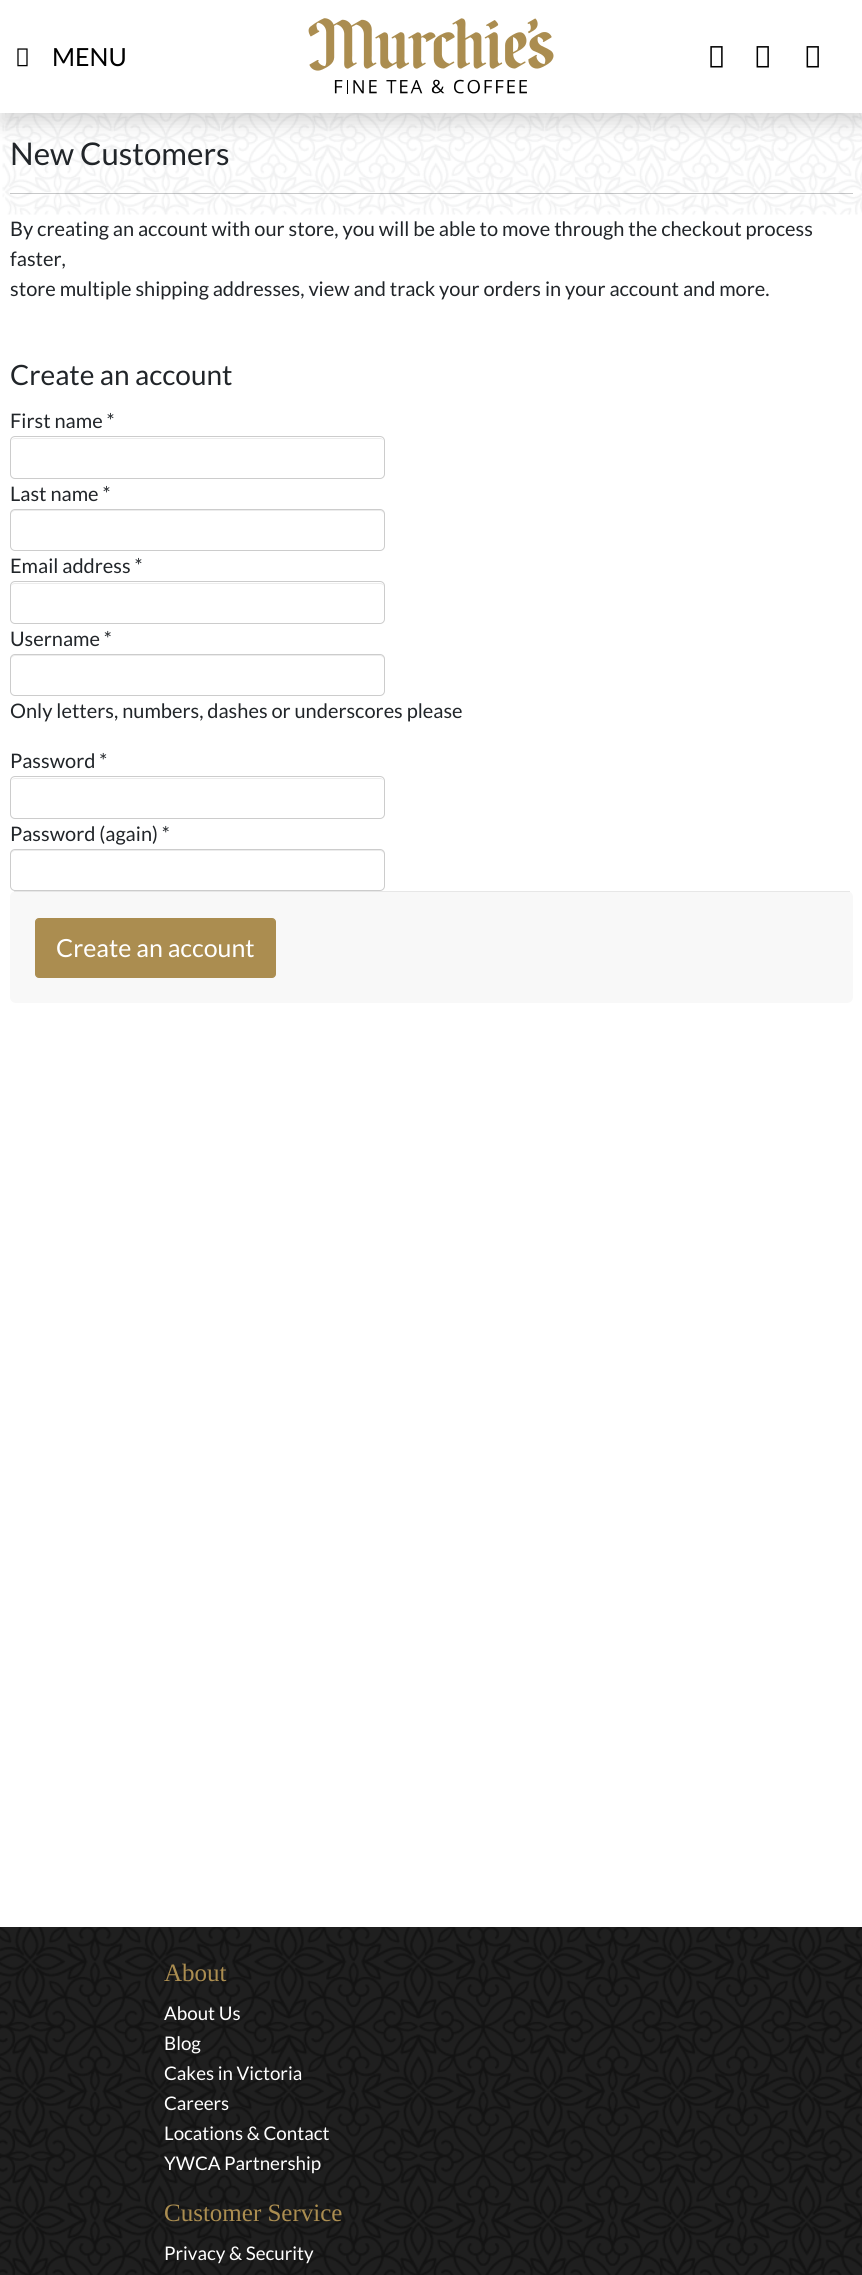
#include <cairo.h>
#include <math.h>
#include <stddef.h>

static cairo_t *ctx;

static void use_color(int r, int g, int b) {
    cairo_set_source_rgb(ctx, r / 255.0, g / 255.0, b / 255.0);
}

static void round_rect(double x, double y, double w, double h, double r) {
    cairo_new_sub_path(ctx);
    cairo_arc(ctx, x + w - r, y + h - r, r, 0, M_PI / 2);
    cairo_arc(ctx, x + r, y + h - r, r, M_PI / 2, M_PI);
    cairo_arc(ctx, x + r, y + r, r, M_PI, 1.5 * M_PI);
    cairo_arc(ctx, x + w - r, y + r, r, 1.5 * M_PI, 2 * M_PI);
    cairo_close_path(ctx);
}

static void shadow(double x, double y, double w, double h, double r, double blur, double alpha) {
    cairo_push_group_with_content(ctx, CAIRO_CONTENT_ALPHA);
    cairo_set_operator(ctx, CAIRO_OPERATOR_SOURCE);
    for (int i = 15; i >= -15 && fmin(w, h) + blur * i / 3 > 0; i -= 2) {
        double e = blur * i / 6;
        cairo_set_source_rgba(ctx, 0, 0, 0, alpha * erfc((i - 1) / 8.5) / 2);
        round_rect(x - e, y - e, w + 2 * e, h + 2 * e, fmax(0, fmin(r + e + blur * .6, fmin(w, h) / 2 + e)));
        cairo_fill(ctx);
    }
    cairo_pattern_t *soft = cairo_pop_group(ctx);
    cairo_mask(ctx, soft);
    cairo_pattern_destroy(soft);
}

static void picture(const char *path, double x, double y, double w, double h) {
    cairo_surface_t *image = cairo_image_surface_create_from_png(path);
    cairo_save(ctx);
    cairo_set_source_surface(ctx, image, x, y);
    cairo_rectangle(ctx, x, y, w, h);
    cairo_fill(ctx);
    cairo_restore(ctx);
    cairo_surface_destroy(image);
}

int main(void) {
    cairo_surface_t *surface = cairo_image_surface_create(CAIRO_FORMAT_RGB24, 862, 2275);
    ctx = cairo_create(surface);
    cairo_font_options_t *options = cairo_font_options_create();
    cairo_font_options_set_hint_metrics(options, CAIRO_HINT_METRICS_OFF);
    cairo_font_options_set_hint_style(options, CAIRO_HINT_STYLE_NONE);
    cairo_set_font_options(ctx, options);
    cairo_set_miter_limit(ctx, 4);
    use_color(255, 255, 255);
    cairo_paint(ctx);
    picture("img5.png", 2, 113, 860, 102);
    use_color(0, 0, 0);
    shadow(0, 10, 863, 113, 0, 10, 0.15);
    use_color(255, 255, 255);
    cairo_rectangle(ctx, 0, 0, 862, 113);
    cairo_fill(ctx);
    picture("img1.png", 17, 48, 11, 19);
    cairo_select_font_face(ctx, "Lato", CAIRO_FONT_SLANT_NORMAL, CAIRO_FONT_WEIGHT_NORMAL);
    cairo_set_font_size(ctx, 25);
    use_color(0, 0, 0);
    cairo_move_to(ctx, 52, 66);
    cairo_show_text(ctx, "MENU");
    picture("img2.png", 308, 18, 246, 76);
    picture("img3.png", 710, 46, 13, 22);
    picture("img4.png", 756, 46, 13, 22);
    picture("img4.png", 806, 46, 13, 22);
    cairo_set_font_size(ctx, 31.25);
    use_color(33, 37, 41);
    cairo_move_to(ctx, 10, 165);
    cairo_show_text(ctx, "New Customers");
    cairo_set_source_rgba(ctx, 0.129, 0.145, 0.161, 0.25);
    cairo_rectangle(ctx, 10, 193, 843, 1);
    cairo_fill(ctx);
    cairo_set_font_size(ctx, 20);
    use_color(33, 37, 41);
    cairo_move_to(ctx, 10, 236);
    cairo_show_text(ctx, "By creating an account with our store, you will be able to move through the checkout process");
    cairo_move_to(ctx, 10, 266);
    cairo_show_text(ctx, "faster,");
    cairo_move_to(ctx, 10, 296);
    cairo_show_text(ctx, "store multiple shipping addresses, view and track your orders in your account and more.");
    cairo_set_font_size(ctx, 28);
    cairo_move_to(ctx, 10, 385);
    cairo_show_text(ctx, "Create an account");
    cairo_set_font_size(ctx, 20);
    cairo_move_to(ctx, 10, 428);
    cairo_show_text(ctx, "First name *");
    use_color(236, 236, 236);
    cairo_new_path(ctx);
    cairo_move_to(ctx, 15, 439);
    cairo_line_to(ctx, 380, 439);
    cairo_curve_to(ctx, 382, 439, 384, 440, 384, 442);
    cairo_curve_to(ctx, 384, 440, 382, 438, 380, 438);
    cairo_line_to(ctx, 15, 438);
    cairo_curve_to(ctx, 13, 438, 11, 440, 11, 442);
    cairo_curve_to(ctx, 11, 440, 13, 439, 15, 439);
    cairo_close_path(ctx);
    cairo_fill(ctx);
    round_rect(10.5, 436.5, 374, 42, 4.5);
    use_color(204, 204, 204);
    cairo_set_line_width(ctx, 1);
    cairo_stroke(ctx);
    use_color(33, 37, 41);
    cairo_move_to(ctx, 10, 501);
    cairo_show_text(ctx, "Last name *");
    use_color(236, 236, 236);
    cairo_new_path(ctx);
    cairo_move_to(ctx, 15, 511);
    cairo_line_to(ctx, 380, 511);
    cairo_curve_to(ctx, 382, 511, 384, 513, 384, 515);
    cairo_curve_to(ctx, 384, 512, 383, 510, 380, 510);
    cairo_line_to(ctx, 15, 510);
    cairo_curve_to(ctx, 12, 510, 11, 512, 11, 515);
    cairo_curve_to(ctx, 11, 513, 13, 511, 15, 511);
    cairo_close_path(ctx);
    cairo_fill(ctx);
    round_rect(10.5, 509.5, 374, 41, 4.5);
    use_color(204, 204, 204);
    cairo_stroke(ctx);
    use_color(33, 37, 41);
    cairo_move_to(ctx, 10, 573);
    cairo_show_text(ctx, "Email address *");
    use_color(236, 236, 236);
    cairo_new_path(ctx);
    cairo_move_to(ctx, 15, 584);
    cairo_line_to(ctx, 380, 584);
    cairo_curve_to(ctx, 382, 584, 384, 585, 384, 588);
    cairo_curve_to(ctx, 384, 585, 383, 583, 380, 583);
    cairo_line_to(ctx, 15, 583);
    cairo_curve_to(ctx, 12, 583, 11, 585, 11, 588);
    cairo_curve_to(ctx, 11, 585, 13, 584, 15, 584);
    cairo_close_path(ctx);
    cairo_fill(ctx);
    round_rect(10.5, 581.5, 374, 42, 4.5);
    use_color(204, 204, 204);
    cairo_stroke(ctx);
    use_color(33, 37, 41);
    cairo_move_to(ctx, 10, 646);
    cairo_show_text(ctx, "Username *");
    use_color(236, 236, 236);
    cairo_new_path(ctx);
    cairo_move_to(ctx, 15, 656);
    cairo_line_to(ctx, 380, 656);
    cairo_curve_to(ctx, 382, 656, 384, 658, 384, 660);
    cairo_curve_to(ctx, 384, 657, 383, 655, 380, 655);
    cairo_line_to(ctx, 15, 655);
    cairo_curve_to(ctx, 12, 655, 11, 657, 11, 660);
    cairo_curve_to(ctx, 11, 658, 13, 656, 15, 656);
    cairo_close_path(ctx);
    cairo_fill(ctx);
    round_rect(10.5, 654.5, 374, 41, 4.5);
    use_color(204, 204, 204);
    cairo_stroke(ctx);
    use_color(33, 37, 41);
    cairo_move_to(ctx, 10, 718);
    cairo_show_text(ctx, "Only letters, numbers, dashes or underscores please");
    cairo_move_to(ctx, 10, 768);
    cairo_show_text(ctx, "Password *");
    use_color(236, 236, 236);
    cairo_new_path(ctx);
    cairo_move_to(ctx, 15, 779);
    cairo_line_to(ctx, 380, 779);
    cairo_curve_to(ctx, 382, 779, 384, 780, 384, 782);
    cairo_curve_to(ctx, 384, 780, 382, 778, 380, 778);
    cairo_line_to(ctx, 15, 778);
    cairo_curve_to(ctx, 13, 778, 11, 780, 11, 782);
    cairo_curve_to(ctx, 11, 780, 13, 779, 15, 779);
    cairo_close_path(ctx);
    cairo_fill(ctx);
    round_rect(10.5, 776.5, 374, 42, 4.5);
    use_color(204, 204, 204);
    cairo_stroke(ctx);
    use_color(33, 37, 41);
    cairo_move_to(ctx, 10, 841);
    cairo_show_text(ctx, "Password (again) *");
    use_color(236, 236, 236);
    cairo_new_path(ctx);
    cairo_move_to(ctx, 15, 851);
    cairo_line_to(ctx, 380, 851);
    cairo_curve_to(ctx, 382, 851, 384, 853, 384, 855);
    cairo_curve_to(ctx, 384, 852, 383, 850, 380, 850);
    cairo_line_to(ctx, 15, 850);
    cairo_curve_to(ctx, 12, 850, 11, 852, 11, 855);
    cairo_curve_to(ctx, 11, 853, 13, 851, 15, 851);
    cairo_close_path(ctx);
    cairo_fill(ctx);
    round_rect(10.5, 849.5, 374, 41, 4.5);
    use_color(204, 204, 204);
    cairo_stroke(ctx);
    use_color(248, 248, 248);
    round_rect(10, 891, 843, 112, 6);
    cairo_fill(ctx);
    use_color(231, 231, 231);
    cairo_rectangle(ctx, 14, 891, 836, 1);
    cairo_fill(ctx);
    use_color(171, 141, 80);
    round_rect(35.5, 918.5, 240, 59, 3.5);
    cairo_fill_preserve(ctx);
    cairo_stroke(ctx);
    cairo_set_font_size(ctx, 25);
    use_color(255, 255, 255);
    cairo_move_to(ctx, 56, 957);
    cairo_show_text(ctx, "Create an account");
    picture("img6.png", 0, 1927, 862, 348);
    cairo_select_font_face(ctx, "Liberation Serif", CAIRO_FONT_SLANT_NORMAL, CAIRO_FONT_WEIGHT_NORMAL);
    use_color(171, 141, 80);
    cairo_move_to(ctx, 164, 1981);
    cairo_show_text(ctx, "About");
    cairo_select_font_face(ctx, "Lato", CAIRO_FONT_SLANT_NORMAL, CAIRO_FONT_WEIGHT_NORMAL);
    cairo_set_font_size(ctx, 18.75);
    use_color(255, 255, 255);
    cairo_move_to(ctx, 164, 2020);
    cairo_show_text(ctx, "About Us");
    cairo_move_to(ctx, 164, 2050);
    cairo_show_text(ctx, "Blog");
    cairo_move_to(ctx, 164, 2080);
    cairo_show_text(ctx, "Cakes in Victoria");
    cairo_move_to(ctx, 164, 2110);
    cairo_show_text(ctx, "Careers");
    cairo_move_to(ctx, 164, 2140);
    cairo_show_text(ctx, "Locations & Contact");
    cairo_move_to(ctx, 164, 2170);
    cairo_show_text(ctx, "YWCA Partnership");
    cairo_select_font_face(ctx, "Liberation Serif", CAIRO_FONT_SLANT_NORMAL, CAIRO_FONT_WEIGHT_NORMAL);
    cairo_set_font_size(ctx, 25);
    use_color(171, 141, 80);
    cairo_move_to(ctx, 164, 2221);
    cairo_show_text(ctx, "Customer Service");
    cairo_select_font_face(ctx, "Lato", CAIRO_FONT_SLANT_NORMAL, CAIRO_FONT_WEIGHT_NORMAL);
    cairo_set_font_size(ctx, 18.75);
    use_color(255, 255, 255);
    cairo_move_to(ctx, 164, 2260);
    cairo_show_text(ctx, "Privacy & Security");
    cairo_surface_write_to_png(surface, "result.png");
    cairo_font_options_destroy(options);
    cairo_destroy(ctx);
    cairo_surface_destroy(surface);
    return 0;
}
